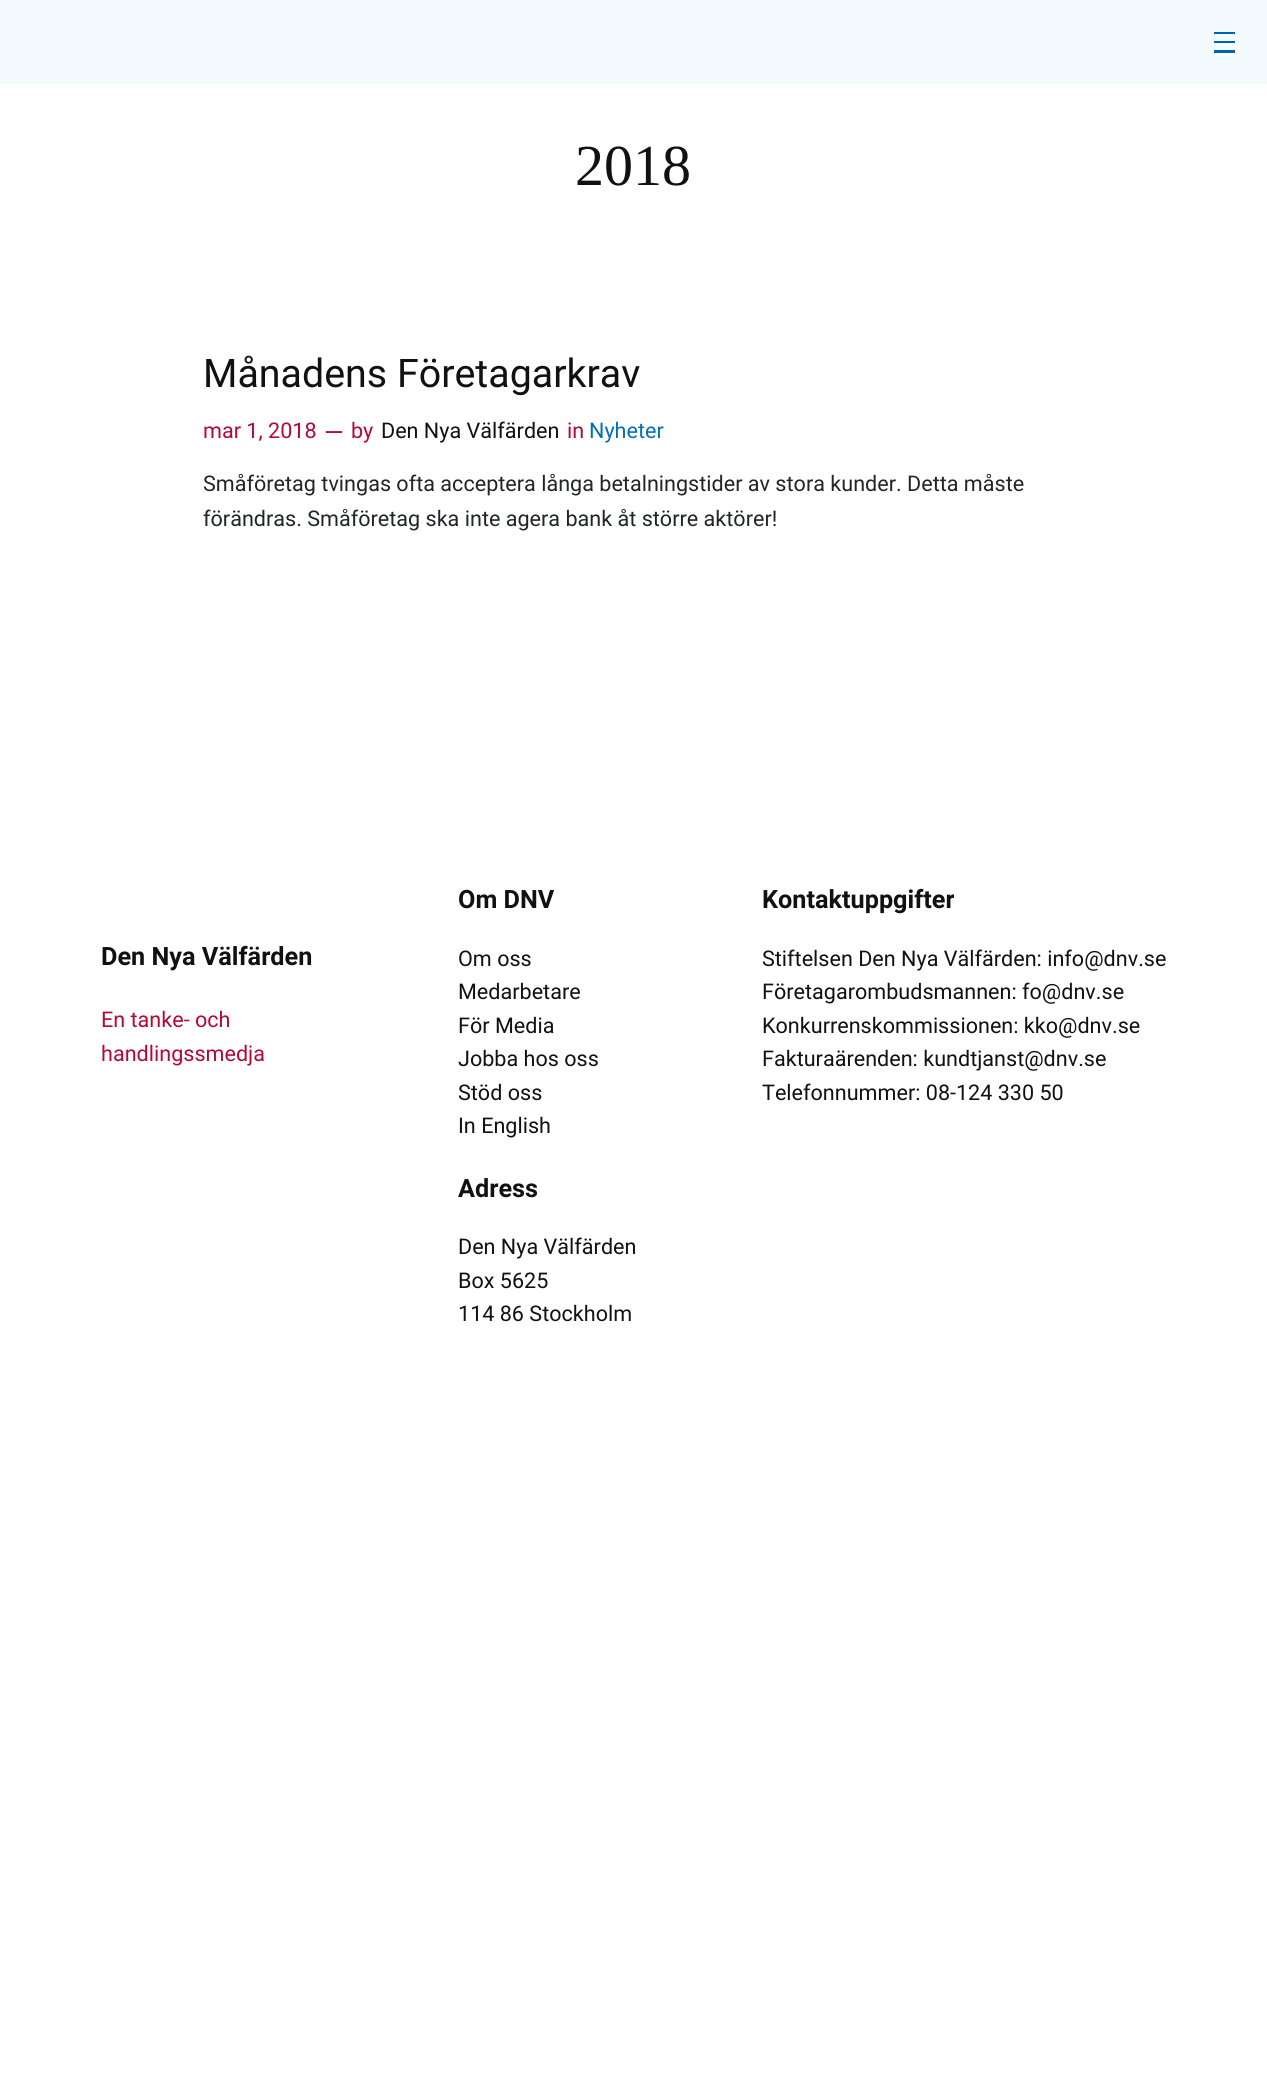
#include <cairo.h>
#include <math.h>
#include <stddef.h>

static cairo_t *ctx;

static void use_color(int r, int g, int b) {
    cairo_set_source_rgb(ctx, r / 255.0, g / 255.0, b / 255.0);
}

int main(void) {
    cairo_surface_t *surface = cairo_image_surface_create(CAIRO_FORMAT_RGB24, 1267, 2091);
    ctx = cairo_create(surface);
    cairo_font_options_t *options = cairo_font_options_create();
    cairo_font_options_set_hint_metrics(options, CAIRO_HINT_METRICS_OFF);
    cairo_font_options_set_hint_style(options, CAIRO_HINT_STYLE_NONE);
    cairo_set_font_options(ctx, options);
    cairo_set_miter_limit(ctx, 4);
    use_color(255, 255, 255);
    cairo_paint(ctx);
    use_color(244, 251, 255);
    cairo_rectangle(ctx, 0, 0, 1267, 84);
    cairo_fill(ctx);
    use_color(0, 96, 178);
    cairo_rectangle(ctx, 1214, 32, 21, 2);
    cairo_fill(ctx);
    cairo_rectangle(ctx, 1214, 41, 21, 2);
    cairo_fill(ctx);
    cairo_rectangle(ctx, 1214, 50, 21, 3);
    cairo_fill(ctx);
    cairo_select_font_face(ctx, "Liberation Serif", CAIRO_FONT_SLANT_NORMAL, CAIRO_FONT_WEIGHT_NORMAL);
    cairo_set_font_size(ctx, 58);
    use_color(17, 17, 17);
    cairo_move_to(ctx, 575, 185);
    cairo_show_text(ctx, "2018");
    cairo_select_font_face(ctx, "Roboto", CAIRO_FONT_SLANT_NORMAL, CAIRO_FONT_WEIGHT_NORMAL);
    cairo_set_font_size(ctx, 39.4);
    cairo_move_to(ctx, 203, 387);
    cairo_show_text(ctx, "Månadens Företagarkrav");
    cairo_set_font_size(ctx, 21.6);
    use_color(179, 9, 51);
    cairo_move_to(ctx, 203, 438);
    cairo_show_text(ctx, "mar 1, 2018");
    cairo_set_font_size(ctx, 25.25);
    cairo_move_to(ctx, 324, 441);
    cairo_show_text(ctx, "—");
    cairo_set_font_size(ctx, 21.6);
    cairo_move_to(ctx, 351, 438);
    cairo_show_text(ctx, "by");
    use_color(17, 17, 17);
    cairo_move_to(ctx, 381, 438);
    cairo_show_text(ctx, "Den Nya Välfärden");
    use_color(179, 9, 51);
    cairo_move_to(ctx, 567, 438);
    cairo_show_text(ctx, "in");
    use_color(0, 112, 186);
    cairo_move_to(ctx, 589, 438);
    cairo_show_text(ctx, "Nyheter");
    use_color(33, 37, 41);
    cairo_move_to(ctx, 203, 491);
    cairo_show_text(ctx, "Småföretag tvingas ofta acceptera långa betalningstider av stora kunder. Detta måste");
    cairo_move_to(ctx, 203, 526);
    cairo_show_text(ctx, "förändras. Småföretag ska inte agera bank åt större aktörer!");
    cairo_select_font_face(ctx, "Roboto", CAIRO_FONT_SLANT_NORMAL, CAIRO_FONT_WEIGHT_BOLD);
    cairo_set_font_size(ctx, 25.25);
    use_color(17, 17, 17);
    cairo_move_to(ctx, 101, 965);
    cairo_show_text(ctx, "Den Nya Välfärden");
    cairo_select_font_face(ctx, "Roboto", CAIRO_FONT_SLANT_NORMAL, CAIRO_FONT_WEIGHT_NORMAL);
    cairo_set_font_size(ctx, 21.6);
    use_color(179, 9, 51);
    cairo_move_to(ctx, 101, 1027);
    cairo_show_text(ctx, "En tanke- och");
    cairo_move_to(ctx, 101, 1061);
    cairo_show_text(ctx, "handlingssmedja");
    cairo_select_font_face(ctx, "Roboto", CAIRO_FONT_SLANT_NORMAL, CAIRO_FONT_WEIGHT_BOLD);
    cairo_set_font_size(ctx, 25.25);
    use_color(17, 17, 17);
    cairo_move_to(ctx, 458, 908);
    cairo_show_text(ctx, "Om DNV");
    cairo_select_font_face(ctx, "Roboto", CAIRO_FONT_SLANT_NORMAL, CAIRO_FONT_WEIGHT_NORMAL);
    cairo_set_font_size(ctx, 21.6);
    cairo_move_to(ctx, 458, 966);
    cairo_show_text(ctx, "Om oss");
    cairo_move_to(ctx, 458, 999);
    cairo_show_text(ctx, "Medarbetare");
    cairo_move_to(ctx, 458, 1033);
    cairo_show_text(ctx, "För Media");
    cairo_move_to(ctx, 458, 1066);
    cairo_show_text(ctx, "Jobba hos oss");
    cairo_move_to(ctx, 458, 1100);
    cairo_show_text(ctx, "Stöd oss");
    cairo_move_to(ctx, 458, 1133);
    cairo_show_text(ctx, "In English");
    cairo_select_font_face(ctx, "Roboto", CAIRO_FONT_SLANT_NORMAL, CAIRO_FONT_WEIGHT_BOLD);
    cairo_set_font_size(ctx, 25.25);
    cairo_move_to(ctx, 762, 908);
    cairo_show_text(ctx, "Kontaktuppgifter");
    cairo_select_font_face(ctx, "Roboto", CAIRO_FONT_SLANT_NORMAL, CAIRO_FONT_WEIGHT_NORMAL);
    cairo_set_font_size(ctx, 21.6);
    cairo_move_to(ctx, 762, 966);
    cairo_show_text(ctx, "Stiftelsen Den Nya Välfärden: info@dnv.se");
    cairo_move_to(ctx, 762, 999);
    cairo_show_text(ctx, "Företagarombudsmannen: fo@dnv.se");
    cairo_move_to(ctx, 762, 1033);
    cairo_show_text(ctx, "Konkurrenskommissionen: kko@dnv.se");
    cairo_move_to(ctx, 762, 1066);
    cairo_show_text(ctx, "Fakturaärenden: kundtjanst@dnv.se");
    cairo_move_to(ctx, 762, 1100);
    cairo_show_text(ctx, "Telefonnummer: 08-124 330 50");
    cairo_select_font_face(ctx, "Roboto", CAIRO_FONT_SLANT_NORMAL, CAIRO_FONT_WEIGHT_BOLD);
    cairo_set_font_size(ctx, 25.25);
    cairo_move_to(ctx, 458, 1197);
    cairo_show_text(ctx, "Adress");
    cairo_select_font_face(ctx, "Roboto", CAIRO_FONT_SLANT_NORMAL, CAIRO_FONT_WEIGHT_NORMAL);
    cairo_set_font_size(ctx, 21.6);
    cairo_move_to(ctx, 458, 1254);
    cairo_show_text(ctx, "Den Nya Välfärden");
    cairo_move_to(ctx, 458, 1288);
    cairo_show_text(ctx, "Box 5625");
    cairo_move_to(ctx, 458, 1321);
    cairo_show_text(ctx, "114 86 Stockholm");
    cairo_surface_write_to_png(surface, "result.png");
    cairo_font_options_destroy(options);
    cairo_destroy(ctx);
    cairo_surface_destroy(surface);
    return 0;
}
